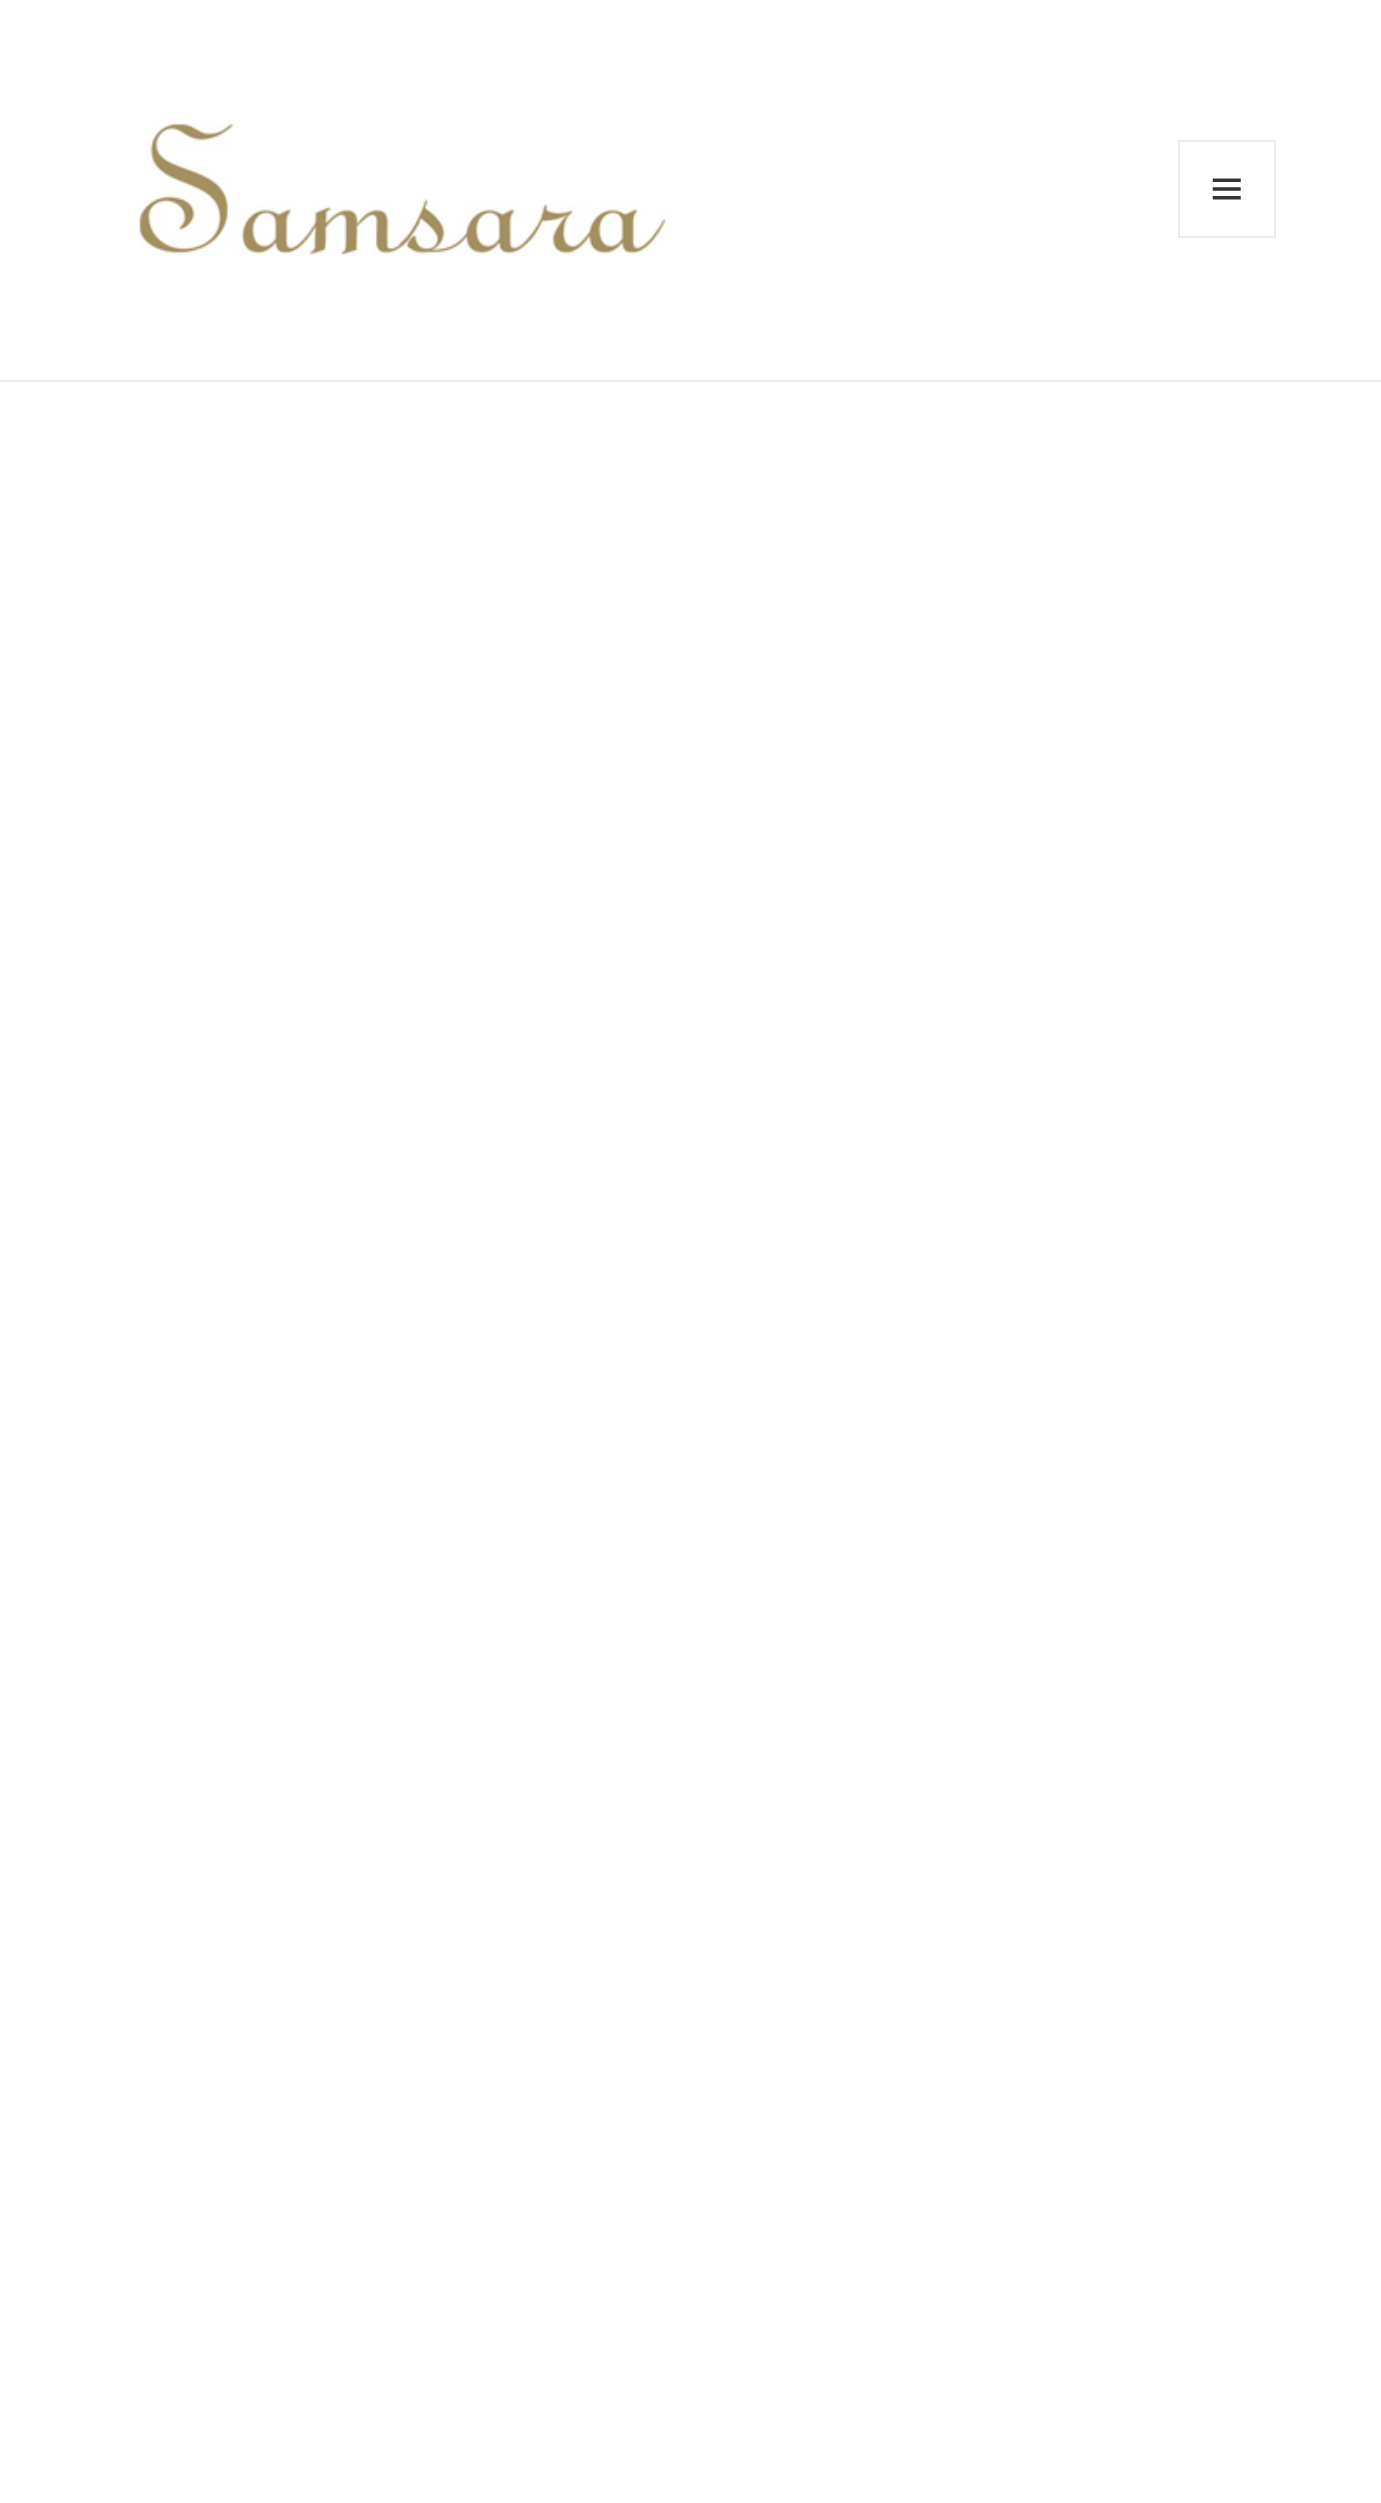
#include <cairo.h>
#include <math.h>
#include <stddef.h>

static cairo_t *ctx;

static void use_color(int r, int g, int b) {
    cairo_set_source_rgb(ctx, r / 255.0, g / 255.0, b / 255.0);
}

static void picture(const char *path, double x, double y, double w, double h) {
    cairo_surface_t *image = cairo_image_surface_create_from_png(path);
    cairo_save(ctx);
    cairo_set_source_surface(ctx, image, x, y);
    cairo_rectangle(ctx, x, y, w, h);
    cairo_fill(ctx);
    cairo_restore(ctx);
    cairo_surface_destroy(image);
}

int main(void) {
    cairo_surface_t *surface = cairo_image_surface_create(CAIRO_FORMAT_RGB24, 1381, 2503);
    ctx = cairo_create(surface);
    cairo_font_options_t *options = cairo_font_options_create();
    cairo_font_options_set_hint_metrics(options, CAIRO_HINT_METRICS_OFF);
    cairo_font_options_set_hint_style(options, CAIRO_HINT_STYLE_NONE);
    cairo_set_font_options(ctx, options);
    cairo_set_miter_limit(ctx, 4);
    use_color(255, 255, 255);
    cairo_paint(ctx);
    use_color(235, 235, 235);
    cairo_rectangle(ctx, 0, 380, 1381, 2);
    cairo_fill(ctx);
    picture("img1.png", 139, 123, 527, 134);
    cairo_rectangle(ctx, 1179, 141, 96, 96);
    cairo_stroke(ctx);
    picture("img2.png", 1212, 178, 29, 22);
    cairo_surface_write_to_png(surface, "result.png");
    cairo_font_options_destroy(options);
    cairo_destroy(ctx);
    cairo_surface_destroy(surface);
    return 0;
}
